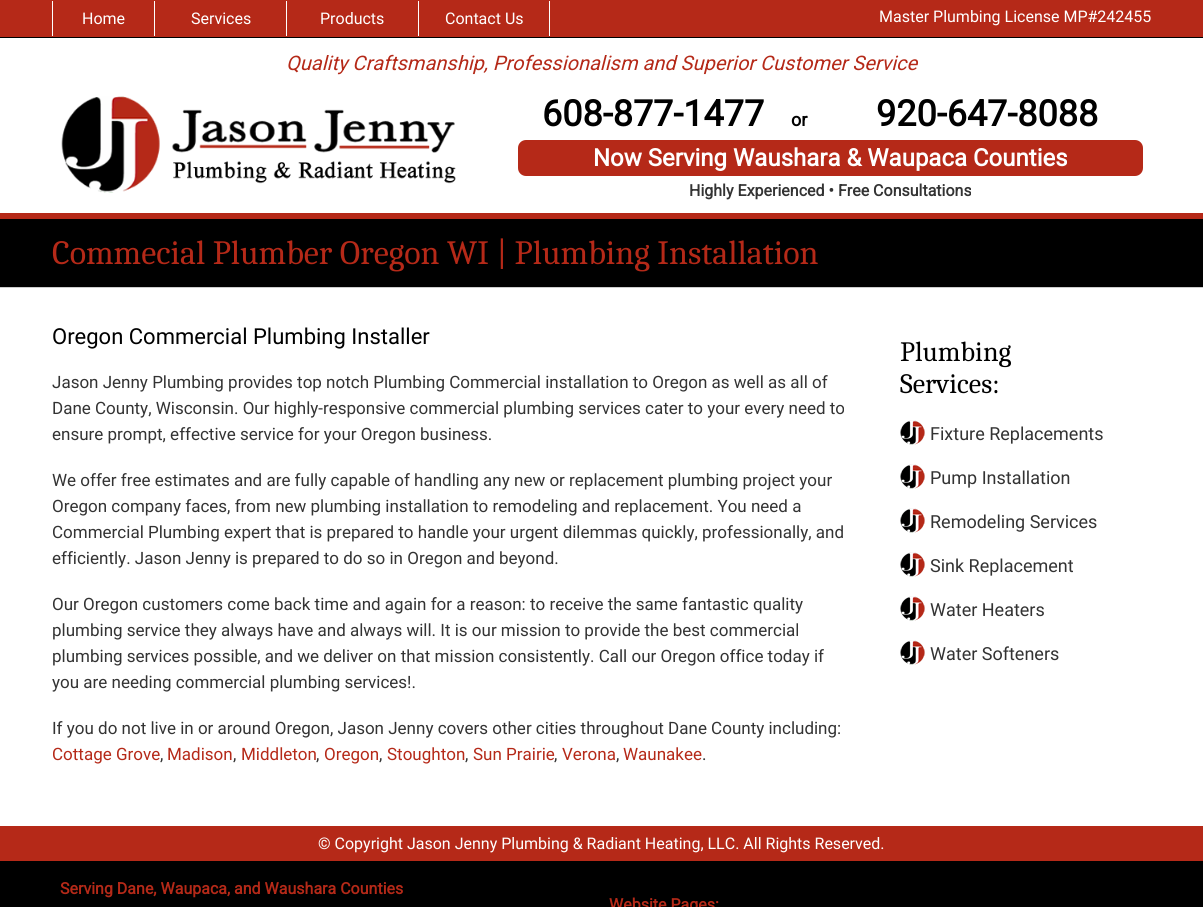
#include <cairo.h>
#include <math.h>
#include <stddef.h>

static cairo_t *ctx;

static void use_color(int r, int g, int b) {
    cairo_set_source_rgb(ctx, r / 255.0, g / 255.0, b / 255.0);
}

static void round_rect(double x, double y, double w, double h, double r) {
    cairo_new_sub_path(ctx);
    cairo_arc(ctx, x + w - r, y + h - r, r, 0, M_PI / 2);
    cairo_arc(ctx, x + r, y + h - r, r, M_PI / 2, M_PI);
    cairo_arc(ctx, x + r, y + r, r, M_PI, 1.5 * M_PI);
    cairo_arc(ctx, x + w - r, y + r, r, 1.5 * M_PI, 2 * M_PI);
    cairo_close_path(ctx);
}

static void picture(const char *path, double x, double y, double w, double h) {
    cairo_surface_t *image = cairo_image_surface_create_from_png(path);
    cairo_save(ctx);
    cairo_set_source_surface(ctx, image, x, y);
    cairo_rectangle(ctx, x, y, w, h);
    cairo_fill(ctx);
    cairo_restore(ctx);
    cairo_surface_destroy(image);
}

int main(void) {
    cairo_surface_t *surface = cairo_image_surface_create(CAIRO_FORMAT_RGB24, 1203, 907);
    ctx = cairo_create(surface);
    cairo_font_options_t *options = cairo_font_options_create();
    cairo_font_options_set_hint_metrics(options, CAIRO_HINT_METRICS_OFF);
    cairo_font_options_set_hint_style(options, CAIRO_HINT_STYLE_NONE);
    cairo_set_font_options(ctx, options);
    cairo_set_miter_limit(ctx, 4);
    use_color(0, 0, 0);
    cairo_paint(ctx);
    use_color(181, 41, 24);
    cairo_rectangle(ctx, 0, 0, 1203, 37);
    cairo_fill(ctx);
    use_color(255, 255, 255);
    cairo_rectangle(ctx, 52, 1, 1, 35);
    cairo_fill(ctx);
    cairo_select_font_face(ctx, "Roboto", CAIRO_FONT_SLANT_NORMAL, CAIRO_FONT_WEIGHT_NORMAL);
    cairo_set_font_size(ctx, 16);
    cairo_move_to(ctx, 82, 24);
    cairo_show_text(ctx, "Home");
    cairo_rectangle(ctx, 154, 1, 1, 35);
    cairo_fill(ctx);
    cairo_move_to(ctx, 191, 24);
    cairo_show_text(ctx, "Services");
    cairo_rectangle(ctx, 286, 1, 1, 35);
    cairo_fill(ctx);
    cairo_move_to(ctx, 320, 24);
    cairo_show_text(ctx, "Products");
    cairo_rectangle(ctx, 549, 1, 1, 35);
    cairo_fill(ctx);
    cairo_rectangle(ctx, 418, 1, 1, 35);
    cairo_fill(ctx);
    cairo_move_to(ctx, 445, 24);
    cairo_show_text(ctx, "Contact Us");
    cairo_move_to(ctx, 879, 22);
    cairo_show_text(ctx, "Master Plumbing License MP#242455");
    cairo_rectangle(ctx, 0, 38, 1203, 175);
    cairo_fill(ctx);
    use_color(181, 41, 24);
    cairo_rectangle(ctx, 0, 213, 1203, 6);
    cairo_fill(ctx);
    cairo_select_font_face(ctx, "Roboto", CAIRO_FONT_SLANT_ITALIC, CAIRO_FONT_WEIGHT_NORMAL);
    cairo_set_font_size(ctx, 20);
    cairo_move_to(ctx, 286, 70);
    cairo_show_text(ctx, "Quality Craftsmanship, Professionalism and Superior Customer Service");
    picture("img1.png", 61, 96, 395, 97);
    cairo_select_font_face(ctx, "Roboto", CAIRO_FONT_SLANT_NORMAL, CAIRO_FONT_WEIGHT_BOLD);
    cairo_set_font_size(ctx, 36);
    use_color(0, 0, 0);
    cairo_move_to(ctx, 542, 126);
    cairo_show_text(ctx, "608-877-1477");
    cairo_set_font_size(ctx, 18);
    cairo_move_to(ctx, 791, 126);
    cairo_show_text(ctx, "or");
    cairo_set_font_size(ctx, 36);
    cairo_move_to(ctx, 876, 126);
    cairo_show_text(ctx, "920-647-8088");
    use_color(181, 41, 24);
    round_rect(518, 140, 625, 36, 8);
    cairo_fill(ctx);
    cairo_set_font_size(ctx, 24);
    use_color(255, 255, 255);
    cairo_move_to(ctx, 593, 166);
    cairo_show_text(ctx, "Now Serving Waushara & Waupaca Counties");
    cairo_set_font_size(ctx, 16);
    use_color(51, 51, 51);
    cairo_move_to(ctx, 689, 196);
    cairo_show_text(ctx, "Highly Experienced • Free Consultations");
    cairo_select_font_face(ctx, "Caladea", CAIRO_FONT_SLANT_NORMAL, CAIRO_FONT_WEIGHT_NORMAL);
    cairo_set_font_size(ctx, 34);
    use_color(181, 41, 24);
    cairo_move_to(ctx, 52, 264);
    cairo_show_text(ctx, "Commecial Plumber Oregon WI | Plumbing Installation");
    use_color(255, 255, 255);
    cairo_rectangle(ctx, 0, 288, 1203, 538);
    cairo_fill(ctx);
    use_color(204, 204, 204);
    cairo_rectangle(ctx, 0, 287, 1203, 1);
    cairo_fill(ctx);
    cairo_select_font_face(ctx, "Roboto", CAIRO_FONT_SLANT_NORMAL, CAIRO_FONT_WEIGHT_NORMAL);
    cairo_set_font_size(ctx, 22);
    use_color(0, 0, 0);
    cairo_move_to(ctx, 52, 344);
    cairo_show_text(ctx, "Oregon Commercial Plumbing Installer");
    cairo_set_font_size(ctx, 17);
    use_color(51, 51, 51);
    cairo_move_to(ctx, 52, 388);
    cairo_show_text(ctx, "Jason Jenny Plumbing provides top notch Plumbing Commercial installation to Oregon as well as all of");
    cairo_move_to(ctx, 52, 414);
    cairo_show_text(ctx, "Dane County, Wisconsin. Our highly-responsive commercial plumbing services cater to your every need to");
    cairo_move_to(ctx, 52, 440);
    cairo_show_text(ctx, "ensure prompt, effective service for your Oregon business.");
    cairo_move_to(ctx, 52, 486);
    cairo_show_text(ctx, "We offer free estimates and are fully capable of handling any new or replacement plumbing project your");
    cairo_move_to(ctx, 52, 512);
    cairo_show_text(ctx, "Oregon company faces, from new plumbing installation to remodeling and replacement. You need a");
    cairo_move_to(ctx, 52, 538);
    cairo_show_text(ctx, "Commercial Plumbing expert that is prepared to handle your urgent dilemmas quickly, professionally, and");
    cairo_move_to(ctx, 52, 564);
    cairo_show_text(ctx, "efficiently. Jason Jenny is prepared to do so in Oregon and beyond.");
    cairo_move_to(ctx, 52, 610);
    cairo_show_text(ctx, "Our Oregon customers come back time and again for a reason: to receive the same fantastic quality");
    cairo_move_to(ctx, 52, 636);
    cairo_show_text(ctx, "plumbing service they always have and always will. It is our mission to provide the best commercial");
    cairo_move_to(ctx, 52, 662);
    cairo_show_text(ctx, "plumbing services possible, and we deliver on that mission consistently. Call our Oregon office today if");
    cairo_move_to(ctx, 52, 688);
    cairo_show_text(ctx, "you are needing commercial plumbing services!.");
    cairo_move_to(ctx, 52, 734);
    cairo_show_text(ctx, "If you do not live in or around Oregon, Jason Jenny covers other cities throughout Dane County including:");
    use_color(181, 41, 24);
    cairo_move_to(ctx, 52, 760);
    cairo_show_text(ctx, "Cottage Grove");
    use_color(51, 51, 51);
    cairo_move_to(ctx, 160, 760);
    cairo_show_text(ctx, ",");
    use_color(181, 41, 24);
    cairo_move_to(ctx, 167, 760);
    cairo_show_text(ctx, "Madison");
    use_color(51, 51, 51);
    cairo_move_to(ctx, 233, 760);
    cairo_show_text(ctx, ",");
    use_color(181, 41, 24);
    cairo_move_to(ctx, 241, 760);
    cairo_show_text(ctx, "Middleton");
    use_color(51, 51, 51);
    cairo_move_to(ctx, 316, 760);
    cairo_show_text(ctx, ",");
    use_color(181, 41, 24);
    cairo_move_to(ctx, 324, 760);
    cairo_show_text(ctx, "Oregon");
    use_color(51, 51, 51);
    cairo_move_to(ctx, 379, 760);
    cairo_show_text(ctx, ",");
    use_color(181, 41, 24);
    cairo_move_to(ctx, 387, 760);
    cairo_show_text(ctx, "Stoughton");
    use_color(51, 51, 51);
    cairo_move_to(ctx, 465, 760);
    cairo_show_text(ctx, ",");
    use_color(181, 41, 24);
    cairo_move_to(ctx, 473, 760);
    cairo_show_text(ctx, "Sun Prairie");
    use_color(51, 51, 51);
    cairo_move_to(ctx, 554, 760);
    cairo_show_text(ctx, ",");
    use_color(181, 41, 24);
    cairo_move_to(ctx, 562, 760);
    cairo_show_text(ctx, "Verona");
    use_color(51, 51, 51);
    cairo_move_to(ctx, 616, 760);
    cairo_show_text(ctx, ",");
    use_color(181, 41, 24);
    cairo_move_to(ctx, 623, 760);
    cairo_show_text(ctx, "Waunakee");
    use_color(51, 51, 51);
    cairo_move_to(ctx, 702, 760);
    cairo_show_text(ctx, ".");
    cairo_select_font_face(ctx, "Caladea", CAIRO_FONT_SLANT_NORMAL, CAIRO_FONT_WEIGHT_NORMAL);
    cairo_set_font_size(ctx, 28);
    use_color(0, 0, 0);
    cairo_move_to(ctx, 900, 361);
    cairo_show_text(ctx, "Plumbing");
    cairo_move_to(ctx, 900, 393);
    cairo_show_text(ctx, "Services:");
    picture("img2.png", 900, 420, 25, 25);
    cairo_select_font_face(ctx, "Roboto", CAIRO_FONT_SLANT_NORMAL, CAIRO_FONT_WEIGHT_NORMAL);
    cairo_set_font_size(ctx, 18);
    use_color(51, 51, 51);
    cairo_move_to(ctx, 930, 440);
    cairo_show_text(ctx, "Fixture Replacements");
    picture("img2.png", 900, 464, 25, 25);
    cairo_move_to(ctx, 930, 484);
    cairo_show_text(ctx, "Pump Installation");
    picture("img2.png", 900, 508, 25, 25);
    cairo_move_to(ctx, 930, 528);
    cairo_show_text(ctx, "Remodeling Services");
    picture("img2.png", 900, 552, 25, 25);
    cairo_move_to(ctx, 930, 572);
    cairo_show_text(ctx, "Sink Replacement");
    picture("img2.png", 900, 596, 25, 25);
    cairo_move_to(ctx, 930, 616);
    cairo_show_text(ctx, "Water Heaters");
    picture("img2.png", 900, 640, 25, 25);
    cairo_move_to(ctx, 930, 660);
    cairo_show_text(ctx, "Water Softeners");
    use_color(181, 41, 24);
    cairo_rectangle(ctx, 0, 826, 1203, 35);
    cairo_fill(ctx);
    cairo_set_font_size(ctx, 16);
    use_color(255, 255, 255);
    cairo_move_to(ctx, 318, 849);
    cairo_show_text(ctx, "© Copyright Jason Jenny Plumbing & Radiant Heating, LLC. All Rights Reserved.");
    cairo_select_font_face(ctx, "Roboto", CAIRO_FONT_SLANT_NORMAL, CAIRO_FONT_WEIGHT_BOLD);
    use_color(181, 41, 24);
    cairo_move_to(ctx, 60, 894);
    cairo_show_text(ctx, "Serving Dane, Waupaca, and Waushara Counties");
    cairo_move_to(ctx, 609, 910);
    cairo_show_text(ctx, "Website Pages:");
    cairo_surface_write_to_png(surface, "result.png");
    cairo_font_options_destroy(options);
    cairo_destroy(ctx);
    cairo_surface_destroy(surface);
    return 0;
}
